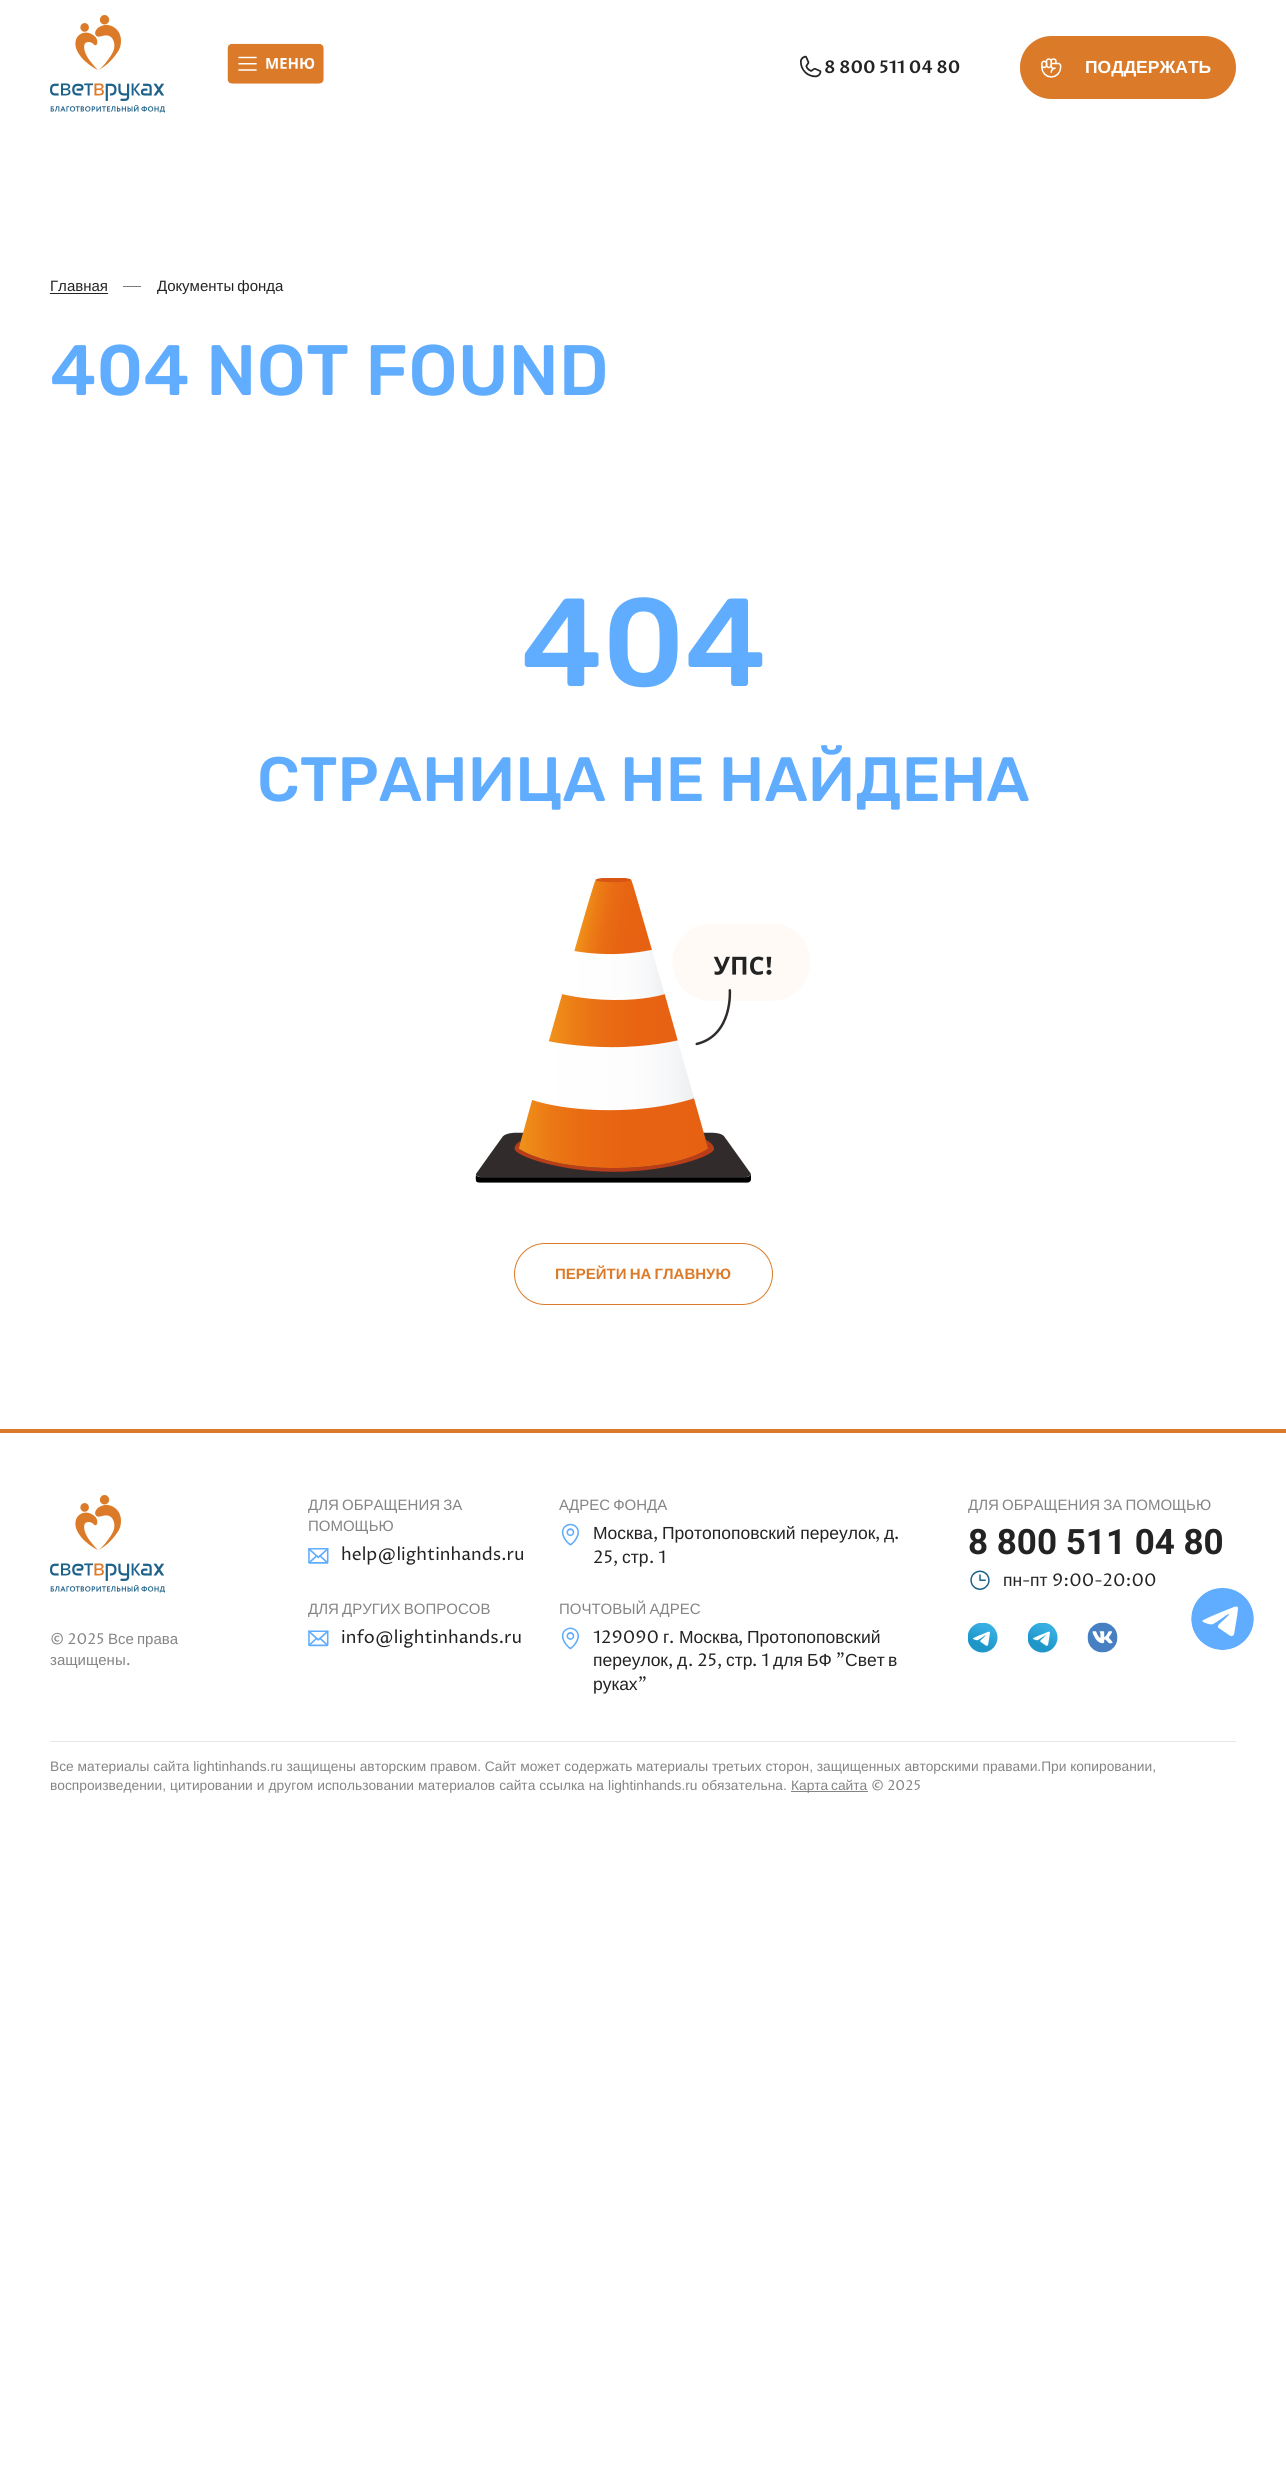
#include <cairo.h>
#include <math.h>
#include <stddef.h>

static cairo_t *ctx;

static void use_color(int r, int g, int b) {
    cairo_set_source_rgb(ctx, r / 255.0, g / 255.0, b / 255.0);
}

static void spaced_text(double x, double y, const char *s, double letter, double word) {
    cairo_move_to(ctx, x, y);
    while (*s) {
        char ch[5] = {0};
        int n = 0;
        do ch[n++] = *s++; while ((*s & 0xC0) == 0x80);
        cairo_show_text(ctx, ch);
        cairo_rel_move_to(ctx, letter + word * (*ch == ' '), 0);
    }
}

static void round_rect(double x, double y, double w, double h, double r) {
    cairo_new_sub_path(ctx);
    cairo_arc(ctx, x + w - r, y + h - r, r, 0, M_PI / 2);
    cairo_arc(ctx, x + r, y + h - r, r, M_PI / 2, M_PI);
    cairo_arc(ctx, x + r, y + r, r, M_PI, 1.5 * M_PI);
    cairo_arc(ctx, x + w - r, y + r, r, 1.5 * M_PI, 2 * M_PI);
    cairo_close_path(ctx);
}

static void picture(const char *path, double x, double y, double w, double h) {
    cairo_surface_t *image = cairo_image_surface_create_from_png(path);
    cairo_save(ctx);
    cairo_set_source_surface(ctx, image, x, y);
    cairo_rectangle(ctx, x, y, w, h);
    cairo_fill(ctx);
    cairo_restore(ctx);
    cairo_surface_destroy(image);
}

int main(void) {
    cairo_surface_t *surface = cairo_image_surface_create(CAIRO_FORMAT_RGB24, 1286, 2469);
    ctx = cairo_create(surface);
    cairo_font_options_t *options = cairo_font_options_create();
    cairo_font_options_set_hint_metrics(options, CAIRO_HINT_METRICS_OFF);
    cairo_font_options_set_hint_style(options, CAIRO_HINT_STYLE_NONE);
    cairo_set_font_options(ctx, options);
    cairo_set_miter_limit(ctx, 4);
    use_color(255, 255, 255);
    cairo_paint(ctx);
    picture("img1.png", 50, 15, 115, 98);
    picture("img2.png", 227, 43, 97, 41);
    picture("img3.png", 800, 55, 22, 23);
    cairo_select_font_face(ctx, "Proza Libre SemiBold", CAIRO_FONT_SLANT_NORMAL, CAIRO_FONT_WEIGHT_NORMAL);
    cairo_set_font_size(ctx, 17.5);
    use_color(35, 35, 35);
    cairo_move_to(ctx, 824, 73);
    cairo_show_text(ctx, "8 800 511 04 80");
    use_color(219, 123, 41);
    round_rect(1020, 36, 216, 63, 31.5);
    cairo_fill(ctx);
    picture("img4.png", 1020, 36, 42, 63);
    cairo_select_font_face(ctx, "Liberation Sans", CAIRO_FONT_SLANT_NORMAL, CAIRO_FONT_WEIGHT_BOLD);
    use_color(255, 255, 255);
    cairo_move_to(ctx, 1085, 73);
    cairo_show_text(ctx, "ПОДДЕРЖАТЬ");
    cairo_select_font_face(ctx, "Liberation Sans", CAIRO_FONT_SLANT_NORMAL, CAIRO_FONT_WEIGHT_NORMAL);
    cairo_set_font_size(ctx, 15);
    use_color(35, 35, 35);
    cairo_move_to(ctx, 50, 291);
    cairo_show_text(ctx, "Главная");
    cairo_rectangle(ctx, 50, 293, 58, 1);
    cairo_fill(ctx);
    cairo_save(ctx);
    cairo_rectangle(ctx, 123, 286, 18, 1);
    cairo_clip(ctx);
    cairo_new_path(ctx);
    cairo_move_to(ctx, 122.5, 287);
    cairo_line_to(ctx, 141, 287);
    cairo_set_line_width(ctx, 1.2);
    cairo_stroke(ctx);
    cairo_restore(ctx);
    spaced_text(157, 291, "Документы фонда", 0, -1);
    cairo_select_font_face(ctx, "Rubik Light", CAIRO_FONT_SLANT_NORMAL, CAIRO_FONT_WEIGHT_NORMAL);
    cairo_set_font_size(ctx, 71.25);
    use_color(96, 173, 255);
    cairo_move_to(ctx, 50, 395);
    cairo_show_text(ctx, "404 NOT FOUND");
    cairo_set_font_size(ctx, 125);
    cairo_move_to(ctx, 521, 686);
    cairo_show_text(ctx, "404");
    cairo_set_font_size(ctx, 62.5);
    cairo_move_to(ctx, 257, 801);
    cairo_show_text(ctx, "СТРАНИЦА НЕ НАЙДЕНА");
    picture("img5.png", 475, 878, 336, 305);
    round_rect(514.5, 1243.5, 258, 61, 30.5);
    use_color(219, 123, 41);
    cairo_set_line_width(ctx, 1);
    cairo_stroke(ctx);
    cairo_select_font_face(ctx, "Liberation Sans", CAIRO_FONT_SLANT_NORMAL, CAIRO_FONT_WEIGHT_BOLD);
    cairo_set_font_size(ctx, 15);
    spaced_text(555, 1279, "ПЕРЕЙТИ НА ГЛАВНУЮ", 0, -1);
    picture("img6.png", 1191, 1588, 63, 62);
    cairo_rectangle(ctx, 0, 1429, 1286, 4);
    cairo_fill(ctx);
    cairo_select_font_face(ctx, "Liberation Sans", CAIRO_FONT_SLANT_NORMAL, CAIRO_FONT_WEIGHT_NORMAL);
    use_color(132, 132, 132);
    spaced_text(308, 1510, "ДЛЯ ОБРАЩЕНИЯ ЗА", 0, -1);
    cairo_move_to(ctx, 308, 1531);
    cairo_show_text(ctx, "ПОМОЩЬЮ");
    picture("img7.png", 308, 1548, 21, 16);
    cairo_select_font_face(ctx, "Proza Libre", CAIRO_FONT_SLANT_NORMAL, CAIRO_FONT_WEIGHT_NORMAL);
    cairo_set_font_size(ctx, 17.5);
    use_color(35, 35, 35);
    cairo_move_to(ctx, 341, 1560);
    cairo_show_text(ctx, "help@lightinhands.ru");
    cairo_select_font_face(ctx, "Liberation Sans", CAIRO_FONT_SLANT_NORMAL, CAIRO_FONT_WEIGHT_NORMAL);
    cairo_set_font_size(ctx, 15);
    use_color(132, 132, 132);
    spaced_text(308, 1614, "ДЛЯ ДРУГИХ ВОПРОСОВ", 0, -1);
    picture("img8.png", 308, 1630, 21, 17);
    cairo_select_font_face(ctx, "Proza Libre", CAIRO_FONT_SLANT_NORMAL, CAIRO_FONT_WEIGHT_NORMAL);
    cairo_set_font_size(ctx, 17.5);
    use_color(35, 35, 35);
    cairo_move_to(ctx, 341, 1643);
    cairo_show_text(ctx, "info@lightinhands.ru");
    cairo_select_font_face(ctx, "Liberation Sans", CAIRO_FONT_SLANT_NORMAL, CAIRO_FONT_WEIGHT_NORMAL);
    cairo_set_font_size(ctx, 15);
    use_color(132, 132, 132);
    spaced_text(559, 1510, "АДРЕС ФОНДА", 0, -1);
    picture("img9.png", 561, 1523, 18, 23);
    cairo_set_font_size(ctx, 17.5);
    use_color(35, 35, 35);
    cairo_move_to(ctx, 593, 1539);
    cairo_show_text(ctx, "Москва");
    cairo_select_font_face(ctx, "Proza Libre", CAIRO_FONT_SLANT_NORMAL, CAIRO_FONT_WEIGHT_NORMAL);
    cairo_move_to(ctx, 653, 1539);
    cairo_show_text(ctx, ",");
    cairo_select_font_face(ctx, "Liberation Sans", CAIRO_FONT_SLANT_NORMAL, CAIRO_FONT_WEIGHT_NORMAL);
    cairo_move_to(ctx, 662, 1539);
    cairo_show_text(ctx, "Протопоповский переулок");
    cairo_select_font_face(ctx, "Proza Libre", CAIRO_FONT_SLANT_NORMAL, CAIRO_FONT_WEIGHT_NORMAL);
    cairo_move_to(ctx, 875, 1539);
    cairo_show_text(ctx, ",");
    cairo_select_font_face(ctx, "Liberation Sans", CAIRO_FONT_SLANT_NORMAL, CAIRO_FONT_WEIGHT_NORMAL);
    cairo_move_to(ctx, 884, 1539);
    cairo_show_text(ctx, "д");
    cairo_select_font_face(ctx, "Proza Libre", CAIRO_FONT_SLANT_NORMAL, CAIRO_FONT_WEIGHT_NORMAL);
    cairo_move_to(ctx, 894, 1539);
    cairo_show_text(ctx, ".");
    cairo_move_to(ctx, 593, 1563);
    cairo_show_text(ctx, "25,");
    cairo_select_font_face(ctx, "Liberation Sans", CAIRO_FONT_SLANT_NORMAL, CAIRO_FONT_WEIGHT_NORMAL);
    cairo_move_to(ctx, 622, 1563);
    cairo_show_text(ctx, "стр");
    cairo_select_font_face(ctx, "Proza Libre", CAIRO_FONT_SLANT_NORMAL, CAIRO_FONT_WEIGHT_NORMAL);
    cairo_move_to(ctx, 649, 1563);
    cairo_show_text(ctx, ". 1");
    cairo_select_font_face(ctx, "Liberation Sans", CAIRO_FONT_SLANT_NORMAL, CAIRO_FONT_WEIGHT_NORMAL);
    cairo_set_font_size(ctx, 15);
    use_color(132, 132, 132);
    spaced_text(559, 1614, "ПОЧТОВЫЙ АДРЕС", 0, -1);
    picture("img10.png", 561, 1627, 18, 23);
    cairo_select_font_face(ctx, "Proza Libre", CAIRO_FONT_SLANT_NORMAL, CAIRO_FONT_WEIGHT_NORMAL);
    cairo_set_font_size(ctx, 17.5);
    use_color(35, 35, 35);
    cairo_move_to(ctx, 593, 1643);
    cairo_show_text(ctx, "129090");
    cairo_select_font_face(ctx, "Liberation Sans", CAIRO_FONT_SLANT_NORMAL, CAIRO_FONT_WEIGHT_NORMAL);
    cairo_move_to(ctx, 663, 1643);
    cairo_show_text(ctx, "г");
    cairo_select_font_face(ctx, "Proza Libre", CAIRO_FONT_SLANT_NORMAL, CAIRO_FONT_WEIGHT_NORMAL);
    cairo_move_to(ctx, 669, 1643);
    cairo_show_text(ctx, ".");
    cairo_select_font_face(ctx, "Liberation Sans", CAIRO_FONT_SLANT_NORMAL, CAIRO_FONT_WEIGHT_NORMAL);
    cairo_move_to(ctx, 679, 1643);
    cairo_show_text(ctx, "Москва");
    cairo_select_font_face(ctx, "Proza Libre", CAIRO_FONT_SLANT_NORMAL, CAIRO_FONT_WEIGHT_NORMAL);
    cairo_move_to(ctx, 738, 1643);
    cairo_show_text(ctx, ",");
    cairo_select_font_face(ctx, "Liberation Sans", CAIRO_FONT_SLANT_NORMAL, CAIRO_FONT_WEIGHT_NORMAL);
    cairo_move_to(ctx, 747, 1643);
    cairo_show_text(ctx, "Протопоповский");
    cairo_move_to(ctx, 593, 1666);
    cairo_show_text(ctx, "переулок");
    cairo_select_font_face(ctx, "Proza Libre", CAIRO_FONT_SLANT_NORMAL, CAIRO_FONT_WEIGHT_NORMAL);
    cairo_move_to(ctx, 668, 1666);
    cairo_show_text(ctx, ",");
    cairo_select_font_face(ctx, "Liberation Sans", CAIRO_FONT_SLANT_NORMAL, CAIRO_FONT_WEIGHT_NORMAL);
    cairo_move_to(ctx, 677, 1666);
    cairo_show_text(ctx, "д");
    cairo_select_font_face(ctx, "Proza Libre", CAIRO_FONT_SLANT_NORMAL, CAIRO_FONT_WEIGHT_NORMAL);
    cairo_move_to(ctx, 688, 1666);
    cairo_show_text(ctx, ". 25,");
    cairo_select_font_face(ctx, "Liberation Sans", CAIRO_FONT_SLANT_NORMAL, CAIRO_FONT_WEIGHT_NORMAL);
    cairo_move_to(ctx, 726, 1666);
    cairo_show_text(ctx, "стр");
    cairo_select_font_face(ctx, "Proza Libre", CAIRO_FONT_SLANT_NORMAL, CAIRO_FONT_WEIGHT_NORMAL);
    cairo_move_to(ctx, 752, 1666);
    cairo_show_text(ctx, ". 1");
    cairo_select_font_face(ctx, "Liberation Sans", CAIRO_FONT_SLANT_NORMAL, CAIRO_FONT_WEIGHT_NORMAL);
    cairo_move_to(ctx, 773, 1666);
    cairo_show_text(ctx, "для");
    cairo_move_to(ctx, 807, 1666);
    cairo_show_text(ctx, "БФ");
    cairo_select_font_face(ctx, "Proza Libre", CAIRO_FONT_SLANT_NORMAL, CAIRO_FONT_WEIGHT_NORMAL);
    cairo_move_to(ctx, 836, 1666);
    cairo_show_text(ctx, "\"");
    cairo_select_font_face(ctx, "Liberation Sans", CAIRO_FONT_SLANT_NORMAL, CAIRO_FONT_WEIGHT_NORMAL);
    cairo_move_to(ctx, 845, 1666);
    cairo_show_text(ctx, "Свет");
    cairo_move_to(ctx, 888, 1666);
    cairo_show_text(ctx, "в");
    cairo_select_font_face(ctx, "Proza Libre", CAIRO_FONT_SLANT_NORMAL, CAIRO_FONT_WEIGHT_NORMAL);
    cairo_move_to(ctx, 638, 1690);
    cairo_show_text(ctx, "\"");
    cairo_select_font_face(ctx, "Liberation Sans", CAIRO_FONT_SLANT_NORMAL, CAIRO_FONT_WEIGHT_NORMAL);
    cairo_move_to(ctx, 593, 1690);
    cairo_show_text(ctx, "руках");
    cairo_set_font_size(ctx, 15);
    use_color(132, 132, 132);
    spaced_text(968, 1510, "ДЛЯ ОБРАЩЕНИЯ ЗА ПОМОЩЬЮ", 0, -1);
    cairo_select_font_face(ctx, "Roboto", CAIRO_FONT_SLANT_NORMAL, CAIRO_FONT_WEIGHT_BOLD);
    cairo_set_font_size(ctx, 35);
    use_color(35, 35, 35);
    cairo_move_to(ctx, 968, 1554);
    cairo_show_text(ctx, "8 800 511 04 80");
    picture("img11.png", 970, 1570, 20, 20);
    cairo_select_font_face(ctx, "Liberation Sans", CAIRO_FONT_SLANT_NORMAL, CAIRO_FONT_WEIGHT_NORMAL);
    cairo_set_font_size(ctx, 17.5);
    cairo_move_to(ctx, 1003, 1586);
    cairo_show_text(ctx, "пн");
    cairo_select_font_face(ctx, "Proza Libre", CAIRO_FONT_SLANT_NORMAL, CAIRO_FONT_WEIGHT_NORMAL);
    cairo_move_to(ctx, 1022, 1586);
    cairo_show_text(ctx, "-");
    cairo_select_font_face(ctx, "Liberation Sans", CAIRO_FONT_SLANT_NORMAL, CAIRO_FONT_WEIGHT_NORMAL);
    cairo_move_to(ctx, 1030, 1586);
    cairo_show_text(ctx, "пт");
    cairo_select_font_face(ctx, "Proza Libre", CAIRO_FONT_SLANT_NORMAL, CAIRO_FONT_WEIGHT_NORMAL);
    cairo_move_to(ctx, 1052, 1586);
    cairo_show_text(ctx, "9:00-20:00");
    picture("img12.png", 968, 1623, 30, 30);
    picture("img12.png", 1028, 1623, 30, 30);
    picture("img13.png", 1087, 1622, 31, 31);
    picture("img1.png", 50, 1495, 115, 98);
    cairo_set_font_size(ctx, 15);
    use_color(132, 132, 132);
    cairo_move_to(ctx, 50, 1644);
    cairo_show_text(ctx, "© 2025");
    cairo_select_font_face(ctx, "Liberation Sans", CAIRO_FONT_SLANT_NORMAL, CAIRO_FONT_WEIGHT_NORMAL);
    cairo_move_to(ctx, 108, 1644);
    cairo_show_text(ctx, "Все");
    cairo_move_to(ctx, 137, 1644);
    cairo_show_text(ctx, "права");
    cairo_move_to(ctx, 50, 1665);
    cairo_show_text(ctx, "защищены");
    cairo_select_font_face(ctx, "Proza Libre", CAIRO_FONT_SLANT_NORMAL, CAIRO_FONT_WEIGHT_NORMAL);
    cairo_move_to(ctx, 126, 1665);
    cairo_show_text(ctx, ".");
    use_color(231, 231, 231);
    cairo_rectangle(ctx, 50, 1741, 1186, 1);
    cairo_fill(ctx);
    cairo_select_font_face(ctx, "Liberation Sans", CAIRO_FONT_SLANT_NORMAL, CAIRO_FONT_WEIGHT_NORMAL);
    cairo_set_font_size(ctx, 13.75);
    use_color(132, 132, 132);
    cairo_move_to(ctx, 50, 1771);
    cairo_show_text(ctx, "Все материалы сайта lightinhands.ru защищены авторским правом. Cайт может содержать материалы третьих сторон, защищенных авторскими правами.При копировании,");
    spaced_text(50, 1790, "воспроизведении, цитировании и другом использовании материалов сайта ссылка на lightinhands.ru обязательна.", 0, 0.25);
    cairo_rectangle(ctx, 791, 1791, 77, 1);
    cairo_fill(ctx);
    spaced_text(791, 1790, "Карта сайта", 0, -1);
    cairo_select_font_face(ctx, "Proza Libre", CAIRO_FONT_SLANT_NORMAL, CAIRO_FONT_WEIGHT_NORMAL);
    cairo_move_to(ctx, 871, 1790);
    cairo_show_text(ctx, "© 2025");
    cairo_surface_write_to_png(surface, "result.png");
    cairo_font_options_destroy(options);
    cairo_destroy(ctx);
    cairo_surface_destroy(surface);
    return 0;
}
